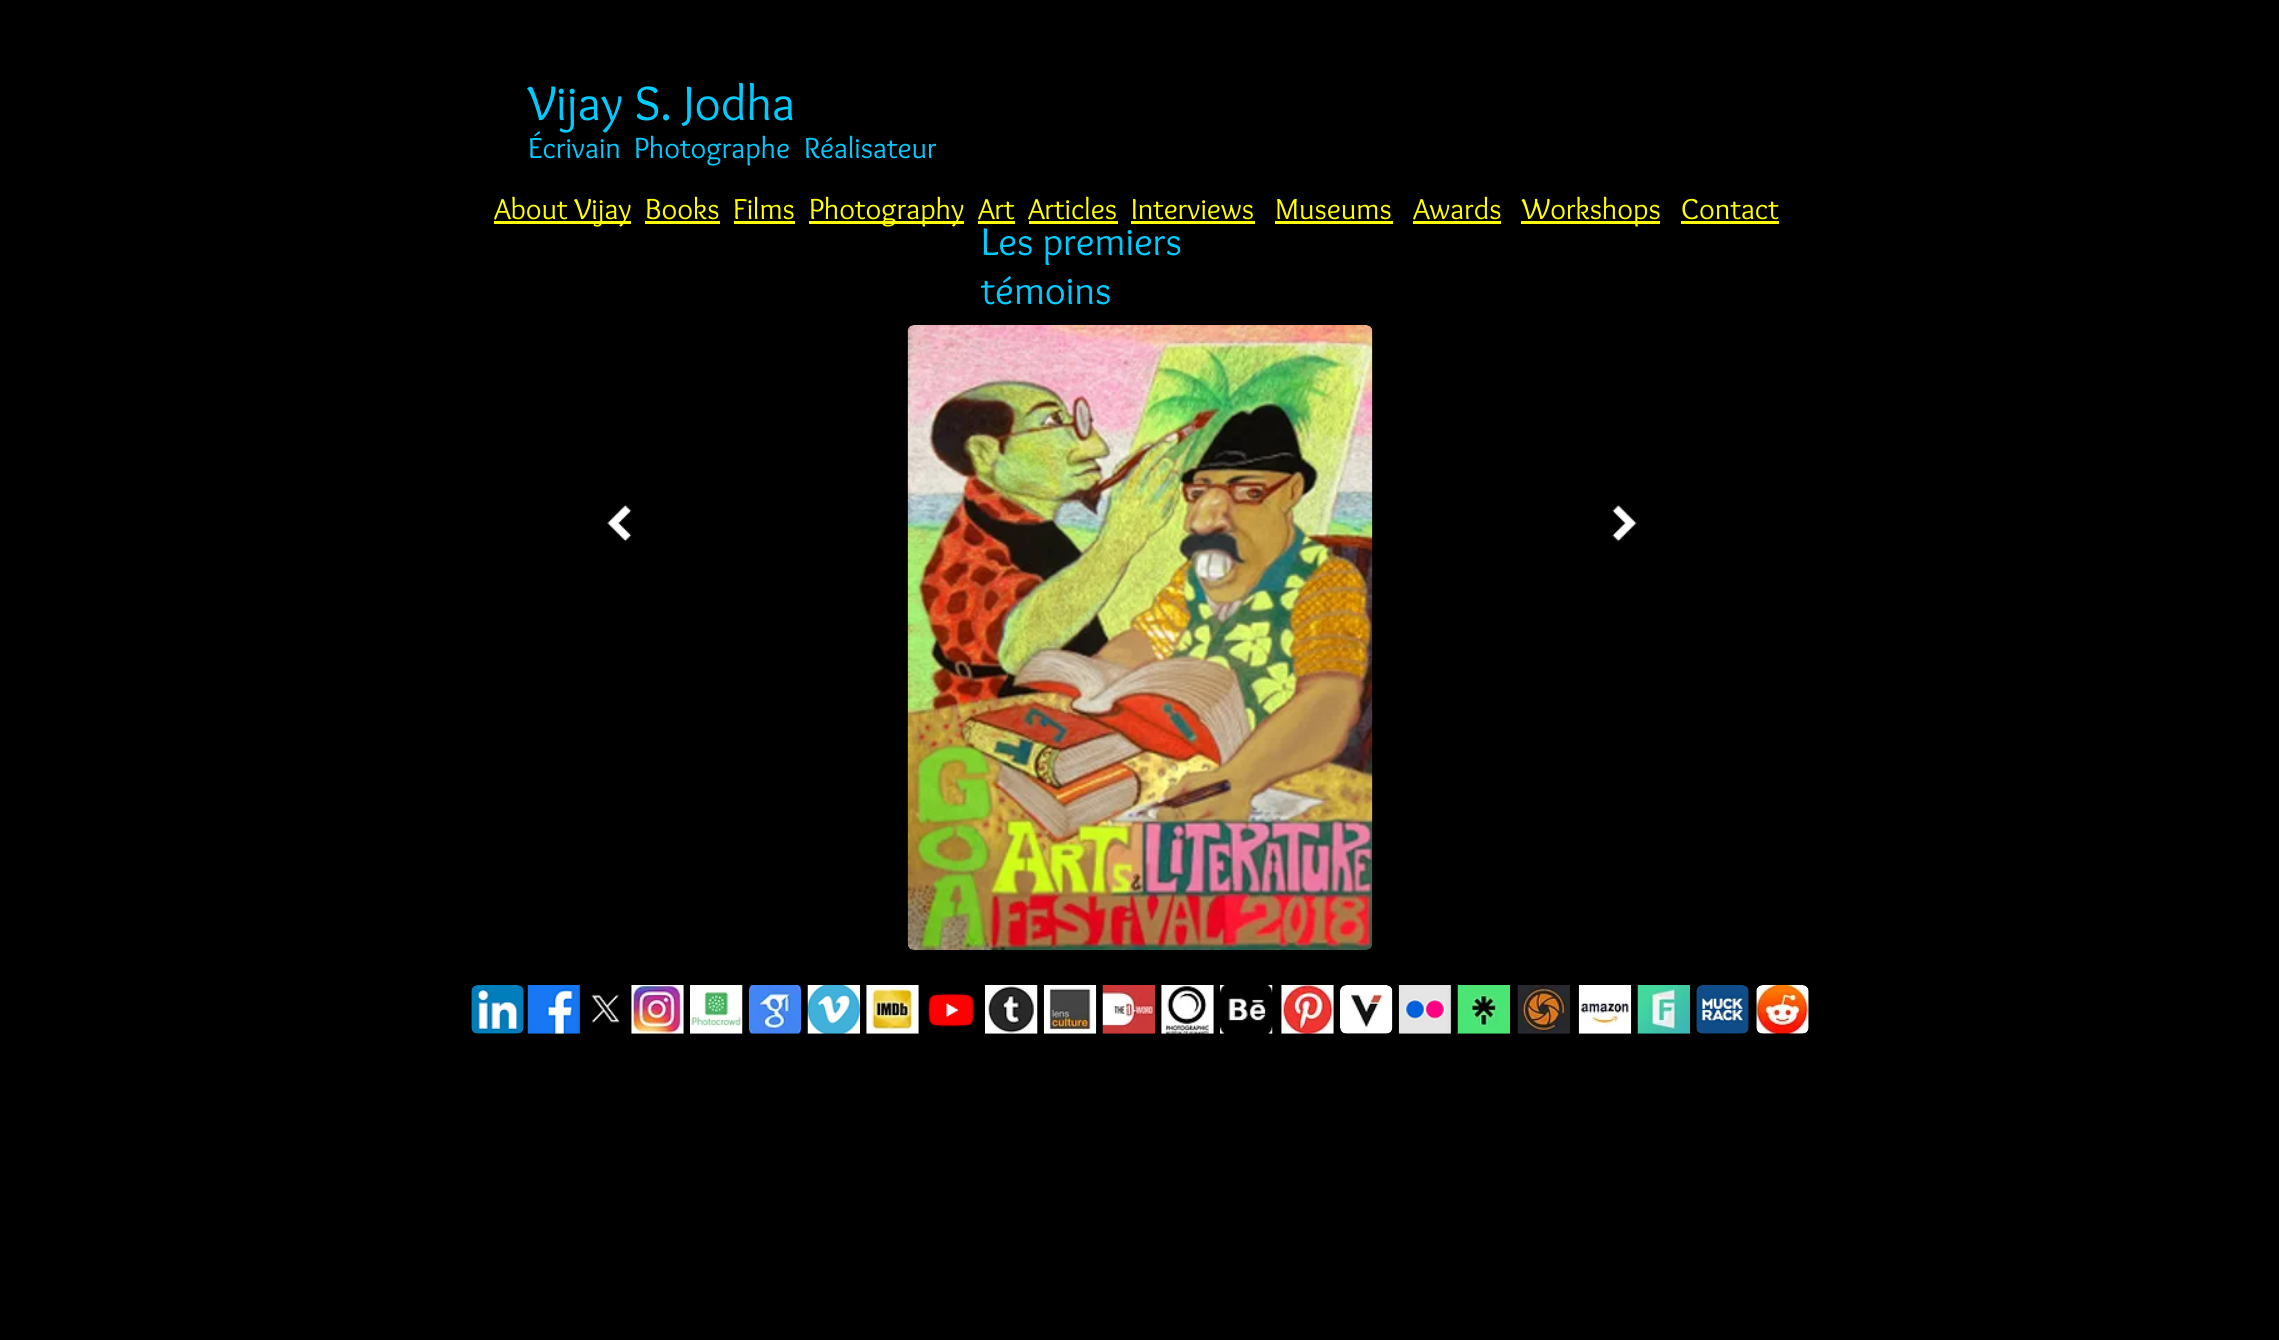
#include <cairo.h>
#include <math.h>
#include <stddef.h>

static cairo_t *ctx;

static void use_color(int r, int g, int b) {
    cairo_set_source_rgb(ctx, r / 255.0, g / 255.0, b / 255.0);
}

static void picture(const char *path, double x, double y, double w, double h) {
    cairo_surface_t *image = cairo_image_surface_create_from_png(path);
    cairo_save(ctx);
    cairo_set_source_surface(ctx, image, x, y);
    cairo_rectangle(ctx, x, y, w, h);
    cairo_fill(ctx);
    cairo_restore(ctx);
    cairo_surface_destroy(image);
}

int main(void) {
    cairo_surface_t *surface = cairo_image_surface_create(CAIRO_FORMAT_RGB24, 2279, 1340);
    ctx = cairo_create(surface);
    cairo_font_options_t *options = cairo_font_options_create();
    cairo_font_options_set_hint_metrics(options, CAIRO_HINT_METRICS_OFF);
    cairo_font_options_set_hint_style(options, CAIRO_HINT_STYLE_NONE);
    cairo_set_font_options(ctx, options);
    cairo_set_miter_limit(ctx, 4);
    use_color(0, 0, 0);
    cairo_paint(ctx);
    cairo_select_font_face(ctx, "Overlock", CAIRO_FONT_SLANT_NORMAL, CAIRO_FONT_WEIGHT_NORMAL);
    cairo_set_font_size(ctx, 50);
    use_color(0, 203, 255);
    cairo_move_to(ctx, 528, 120);
    cairo_show_text(ctx, "Vijay S. Jodha");
    cairo_set_font_size(ctx, 30);
    cairo_move_to(ctx, 528, 158);
    cairo_show_text(ctx, "Écrivain");
    cairo_move_to(ctx, 634, 158);
    cairo_show_text(ctx, "Photographe");
    cairo_move_to(ctx, 804, 158);
    cairo_show_text(ctx, "Réalisateur");
    use_color(255, 255, 0);
    cairo_rectangle(ctx, 494, 221, 137, 3);
    cairo_fill(ctx);
    cairo_move_to(ctx, 494, 219);
    cairo_show_text(ctx, "About Vijay");
    cairo_move_to(ctx, 645, 219);
    cairo_show_text(ctx, "Books");
    cairo_rectangle(ctx, 645, 221, 75, 3);
    cairo_fill(ctx);
    cairo_move_to(ctx, 733, 219);
    cairo_show_text(ctx, "Films");
    cairo_rectangle(ctx, 734, 221, 61, 3);
    cairo_fill(ctx);
    cairo_rectangle(ctx, 809, 221, 155, 3);
    cairo_fill(ctx);
    cairo_move_to(ctx, 809, 219);
    cairo_show_text(ctx, "Photography");
    cairo_move_to(ctx, 978, 219);
    cairo_show_text(ctx, "Art");
    cairo_rectangle(ctx, 978, 221, 37, 3);
    cairo_fill(ctx);
    cairo_move_to(ctx, 1028, 219);
    cairo_show_text(ctx, "Articles");
    cairo_rectangle(ctx, 1029, 221, 89, 3);
    cairo_fill(ctx);
    cairo_move_to(ctx, 1131, 219);
    cairo_show_text(ctx, "Interviews");
    cairo_rectangle(ctx, 1131, 221, 124, 3);
    cairo_fill(ctx);
    cairo_move_to(ctx, 1275, 219);
    cairo_show_text(ctx, "Museums");
    cairo_rectangle(ctx, 1275, 221, 118, 3);
    cairo_fill(ctx);
    cairo_move_to(ctx, 1413, 219);
    cairo_show_text(ctx, "Awards");
    cairo_rectangle(ctx, 1413, 221, 88, 3);
    cairo_fill(ctx);
    cairo_rectangle(ctx, 1521, 221, 139, 3);
    cairo_fill(ctx);
    cairo_move_to(ctx, 1522, 219);
    cairo_show_text(ctx, "Workshops");
    cairo_move_to(ctx, 1681, 219);
    cairo_show_text(ctx, "Contact");
    cairo_rectangle(ctx, 1681, 221, 98, 3);
    cairo_fill(ctx);
    cairo_set_font_size(ctx, 40);
    use_color(0, 203, 255);
    cairo_move_to(ctx, 981, 255);
    cairo_show_text(ctx, "Les premiers");
    cairo_move_to(ctx, 981, 304);
    cairo_show_text(ctx, "témoins");
    picture("img1.png", 607, 504, 25, 38);
    picture("img2.png", 907, 325, 466, 625);
    picture("img3.png", 1612, 505, 25, 37);
    picture("img4.png", 471, 985, 53, 49);
    picture("img5.png", 527, 985, 53, 49);
    picture("img6.png", 591, 994, 29, 29);
    picture("img7.png", 631, 985, 53, 49);
    picture("img8.png", 690, 985, 53, 49);
    picture("img9.png", 748, 985, 54, 49);
    picture("img10.png", 807, 985, 53, 49);
    picture("img11.png", 866, 985, 53, 49);
    picture("img12.png", 928, 993, 46, 34);
    picture("img13.png", 985, 985, 53, 49);
    picture("img14.png", 1043, 985, 54, 49);
    picture("img15.png", 1102, 985, 53, 49);
    picture("img16.png", 1161, 985, 53, 49);
    picture("img17.png", 1220, 985, 53, 49);
    picture("img18.png", 1281, 985, 53, 49);
    picture("img19.png", 1340, 985, 53, 49);
    picture("img20.png", 1398, 985, 54, 49);
    picture("img21.png", 1457, 985, 53, 49);
    picture("img22.png", 1517, 985, 53, 49);
    picture("img23.png", 1578, 985, 54, 49);
    picture("img24.png", 1637, 985, 53, 49);
    picture("img25.png", 1696, 985, 53, 49);
    picture("img26.png", 1756, 985, 53, 49);
    cairo_surface_write_to_png(surface, "result.png");
    cairo_font_options_destroy(options);
    cairo_destroy(ctx);
    cairo_surface_destroy(surface);
    return 0;
}
